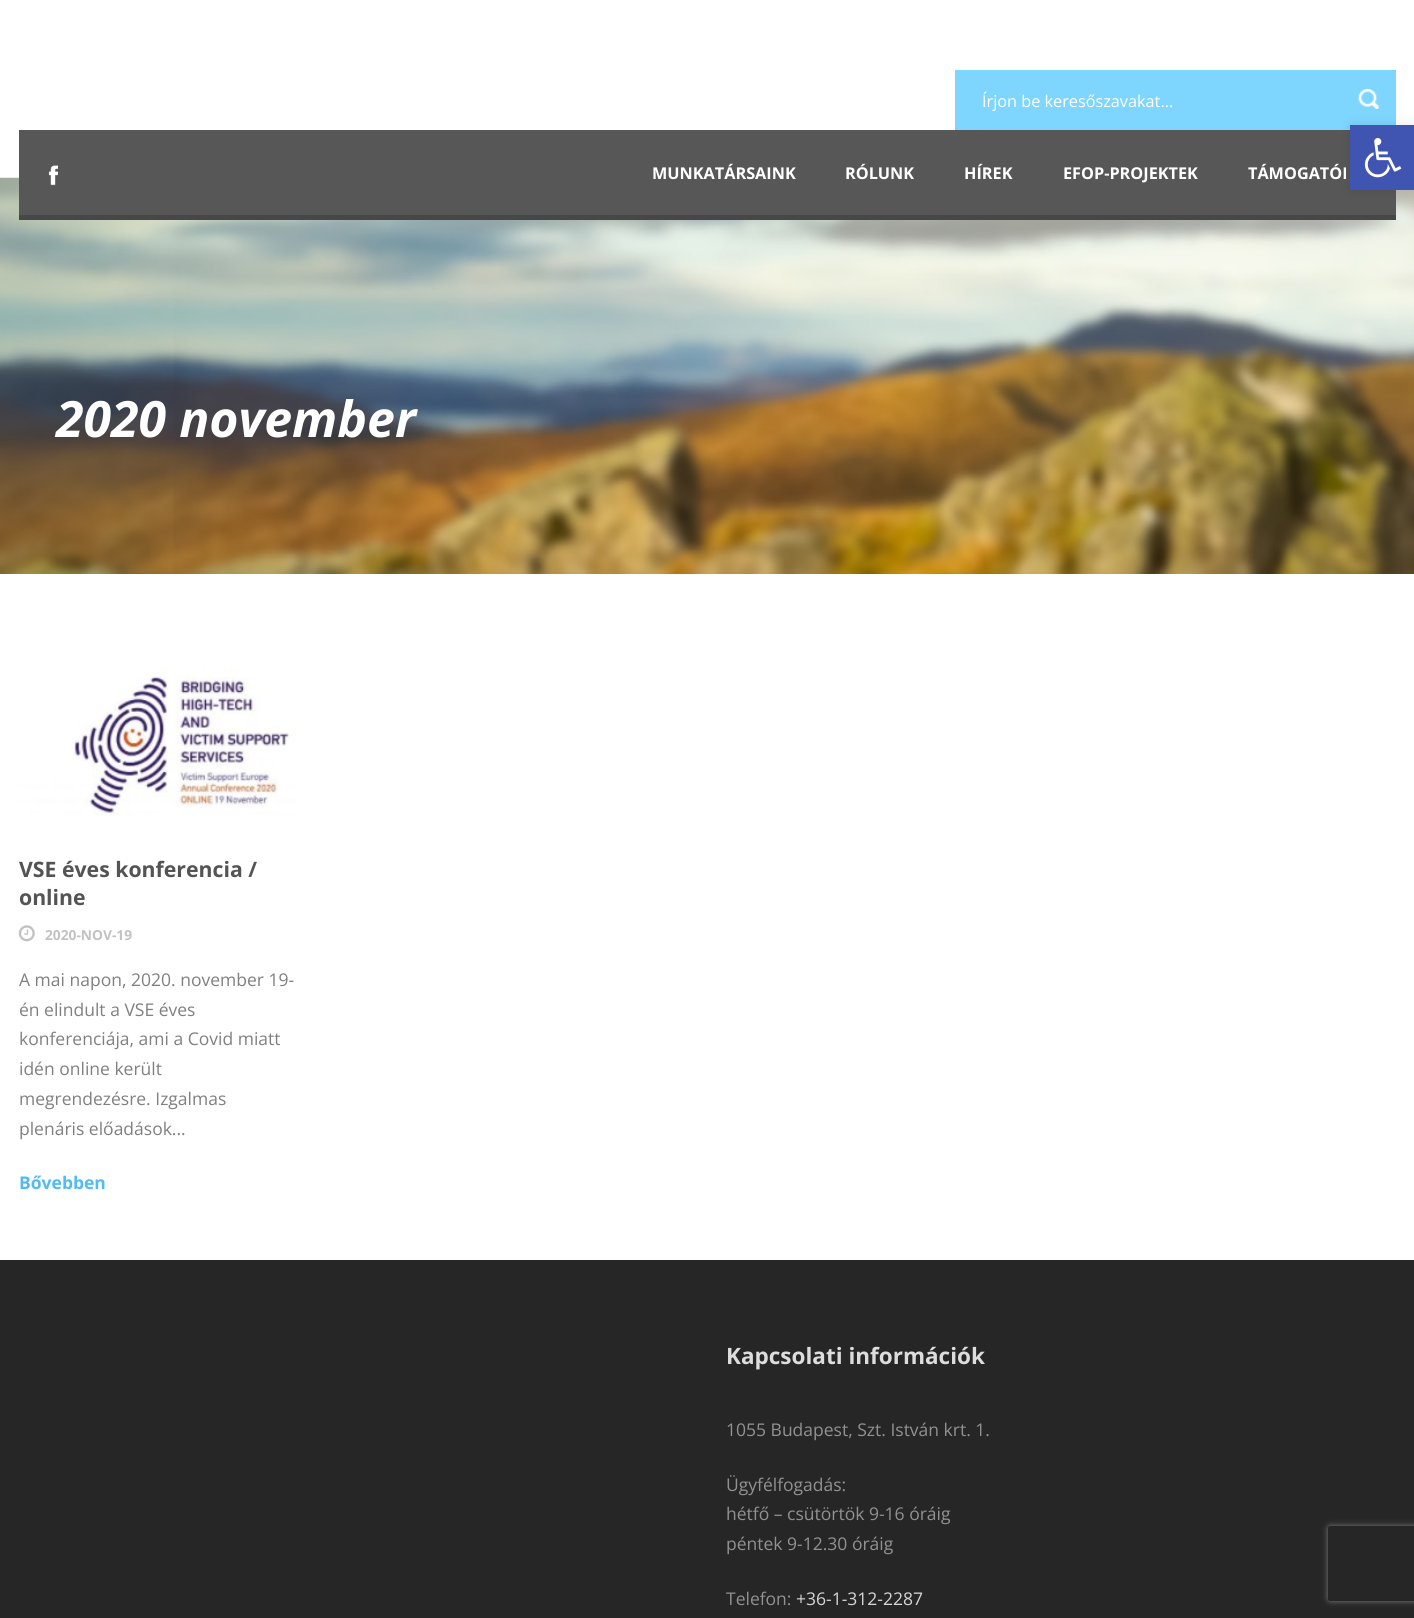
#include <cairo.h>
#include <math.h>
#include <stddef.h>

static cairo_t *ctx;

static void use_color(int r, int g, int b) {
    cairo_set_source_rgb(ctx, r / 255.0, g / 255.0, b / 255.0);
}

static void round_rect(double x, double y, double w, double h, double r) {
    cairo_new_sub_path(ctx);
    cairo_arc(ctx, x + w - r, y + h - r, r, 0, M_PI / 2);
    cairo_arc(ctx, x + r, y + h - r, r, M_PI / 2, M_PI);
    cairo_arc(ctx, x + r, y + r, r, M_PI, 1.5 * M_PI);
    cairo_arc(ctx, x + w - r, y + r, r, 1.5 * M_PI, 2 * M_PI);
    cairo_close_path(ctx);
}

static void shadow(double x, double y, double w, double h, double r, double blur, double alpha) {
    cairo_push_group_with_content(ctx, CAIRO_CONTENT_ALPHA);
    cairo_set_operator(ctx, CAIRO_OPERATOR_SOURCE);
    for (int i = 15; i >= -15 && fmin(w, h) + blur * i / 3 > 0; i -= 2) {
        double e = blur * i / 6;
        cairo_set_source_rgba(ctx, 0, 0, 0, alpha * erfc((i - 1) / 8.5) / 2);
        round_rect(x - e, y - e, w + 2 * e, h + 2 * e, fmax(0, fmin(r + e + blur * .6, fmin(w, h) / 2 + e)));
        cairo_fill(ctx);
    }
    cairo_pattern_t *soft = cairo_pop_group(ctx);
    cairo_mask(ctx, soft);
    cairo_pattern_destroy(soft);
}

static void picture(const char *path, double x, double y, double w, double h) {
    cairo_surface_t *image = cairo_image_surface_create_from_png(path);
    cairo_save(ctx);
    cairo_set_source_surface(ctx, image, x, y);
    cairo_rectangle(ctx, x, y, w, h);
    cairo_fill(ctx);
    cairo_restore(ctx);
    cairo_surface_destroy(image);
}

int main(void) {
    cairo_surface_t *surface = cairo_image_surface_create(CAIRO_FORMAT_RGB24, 1414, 1618);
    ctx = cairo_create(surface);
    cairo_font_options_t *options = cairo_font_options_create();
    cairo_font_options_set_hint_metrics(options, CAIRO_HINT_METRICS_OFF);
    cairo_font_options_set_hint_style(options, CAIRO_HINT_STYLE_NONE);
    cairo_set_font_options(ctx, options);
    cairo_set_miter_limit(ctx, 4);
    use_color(255, 255, 255);
    cairo_paint(ctx);
    use_color(126, 214, 255);
    cairo_rectangle(ctx, 955, 70, 441, 60);
    cairo_fill(ctx);
    cairo_select_font_face(ctx, "Open Sans", CAIRO_FONT_SLANT_NORMAL, CAIRO_FONT_WEIGHT_NORMAL);
    cairo_set_font_size(ctx, 16.25);
    use_color(255, 255, 255);
    cairo_move_to(ctx, 982, 107);
    cairo_show_text(ctx, "Írjon be keresőszavakat...");
    picture("img1.png", 1358, 89, 21, 20);
    picture("img3.png", 0, 177, 1414, 397);
    use_color(87, 87, 87);
    cairo_rectangle(ctx, 19, 130, 1377, 85);
    cairo_fill(ctx);
    use_color(71, 71, 71);
    cairo_rectangle(ctx, 19, 215, 1377, 5);
    cairo_fill(ctx);
    picture("img2.png", 48, 165, 10, 21);
    cairo_select_font_face(ctx, "Open Sans", CAIRO_FONT_SLANT_NORMAL, CAIRO_FONT_WEIGHT_BOLD);
    use_color(255, 255, 255);
    cairo_move_to(ctx, 652, 179);
    cairo_show_text(ctx, "MUNKATÁRSAINK");
    cairo_move_to(ctx, 845, 179);
    cairo_show_text(ctx, "RÓLUNK");
    cairo_move_to(ctx, 964, 179);
    cairo_show_text(ctx, "HÍREK");
    cairo_move_to(ctx, 1063, 179);
    cairo_show_text(ctx, "EFOP-PROJEKTEK");
    cairo_move_to(ctx, 1248, 179);
    cairo_show_text(ctx, "TÁMOGATÓI");
    cairo_select_font_face(ctx, "Open Sans", CAIRO_FONT_SLANT_ITALIC, CAIRO_FONT_WEIGHT_BOLD);
    cairo_set_font_size(ctx, 50);
    cairo_move_to(ctx, 56, 437);
    cairo_show_text(ctx, "2020 november");
    picture("img4.png", 19, 649, 277, 177);
    cairo_select_font_face(ctx, "Open Sans", CAIRO_FONT_SLANT_NORMAL, CAIRO_FONT_WEIGHT_BOLD);
    cairo_set_font_size(ctx, 21.25);
    use_color(84, 84, 84);
    cairo_move_to(ctx, 19, 877);
    cairo_show_text(ctx, "VSE éves konferencia /");
    cairo_move_to(ctx, 19, 905);
    cairo_show_text(ctx, "online");
    picture("img5.png", 18, 925, 17, 17);
    cairo_set_font_size(ctx, 13.75);
    use_color(194, 194, 194);
    cairo_move_to(ctx, 45, 940);
    cairo_show_text(ctx, "2020-NOV-19");
    cairo_select_font_face(ctx, "Open Sans", CAIRO_FONT_SLANT_NORMAL, CAIRO_FONT_WEIGHT_NORMAL);
    cairo_set_font_size(ctx, 17.5);
    use_color(128, 128, 128);
    cairo_move_to(ctx, 19, 986);
    cairo_show_text(ctx, "A mai napon, 2020. november 19-");
    cairo_move_to(ctx, 19, 1016);
    cairo_show_text(ctx, "én elindult a VSE éves");
    cairo_move_to(ctx, 19, 1045);
    cairo_show_text(ctx, "konferenciája, ami a Covid miatt");
    cairo_move_to(ctx, 19, 1075);
    cairo_show_text(ctx, "idén online került");
    cairo_move_to(ctx, 19, 1105);
    cairo_show_text(ctx, "megrendezésre. Izgalmas");
    cairo_move_to(ctx, 19, 1135);
    cairo_show_text(ctx, "plenáris előadások...");
    cairo_select_font_face(ctx, "Open Sans", CAIRO_FONT_SLANT_NORMAL, CAIRO_FONT_WEIGHT_BOLD);
    use_color(80, 187, 244);
    cairo_move_to(ctx, 19, 1189);
    cairo_show_text(ctx, "Bővebben");
    use_color(38, 38, 38);
    cairo_rectangle(ctx, 0, 1260, 1414, 358);
    cairo_fill(ctx);
    cairo_set_font_size(ctx, 22.5);
    use_color(221, 221, 221);
    cairo_move_to(ctx, 726, 1364);
    cairo_show_text(ctx, "Kapcsolati információk");
    cairo_select_font_face(ctx, "Open Sans", CAIRO_FONT_SLANT_NORMAL, CAIRO_FONT_WEIGHT_NORMAL);
    cairo_set_font_size(ctx, 17.5);
    use_color(145, 145, 145);
    cairo_move_to(ctx, 726, 1436);
    cairo_show_text(ctx, "1055 Budapest, Szt. István krt. 1.");
    cairo_move_to(ctx, 726, 1491);
    cairo_show_text(ctx, "Ügyfélfogadás:");
    cairo_move_to(ctx, 726, 1520);
    cairo_show_text(ctx, "hétfő – csütörtök 9-16 óráig");
    cairo_move_to(ctx, 726, 1550);
    cairo_show_text(ctx, "péntek 9-12.30 óráig");
    cairo_move_to(ctx, 726, 1605);
    cairo_show_text(ctx, "Telefon:");
    use_color(214, 214, 214);
    cairo_move_to(ctx, 796, 1605);
    cairo_show_text(ctx, "+36-1-312-2287");
    use_color(0, 0, 0);
    shadow(1350, 125, 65, 65, 0, 6, 0.1);
    use_color(64, 84, 178);
    cairo_rectangle(ctx, 1350, 125, 64, 65);
    cairo_fill(ctx);
    picture("img6.png", 1364, 138, 38, 40);
    cairo_save(ctx);
    cairo_set_fill_rule(ctx, CAIRO_FILL_RULE_EVEN_ODD);
    cairo_new_path(ctx);
    cairo_move_to(ctx, 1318, 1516);
    cairo_line_to(ctx, 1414, 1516);
    cairo_line_to(ctx, 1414, 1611);
    cairo_line_to(ctx, 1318, 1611);
    cairo_close_path(ctx);
    cairo_move_to(ctx, 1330.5, 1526);
    cairo_line_to(ctx, 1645.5, 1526);
    cairo_curve_to(ctx, 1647, 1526, 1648, 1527, 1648, 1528.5);
    cairo_line_to(ctx, 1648, 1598.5);
    cairo_curve_to(ctx, 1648, 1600, 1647, 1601, 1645.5, 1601);
    cairo_line_to(ctx, 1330.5, 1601);
    cairo_curve_to(ctx, 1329, 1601, 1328, 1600, 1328, 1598.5);
    cairo_line_to(ctx, 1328, 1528.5);
    cairo_curve_to(ctx, 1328, 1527, 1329, 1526, 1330.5, 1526);
    cairo_close_path(ctx);
    cairo_clip(ctx);
    use_color(128, 128, 128);
    shadow(1328, 1526, 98, 75, 2.5, 3, 1);
    cairo_restore(ctx);
    cairo_surface_write_to_png(surface, "result.png");
    cairo_font_options_destroy(options);
    cairo_destroy(ctx);
    cairo_surface_destroy(surface);
    return 0;
}
